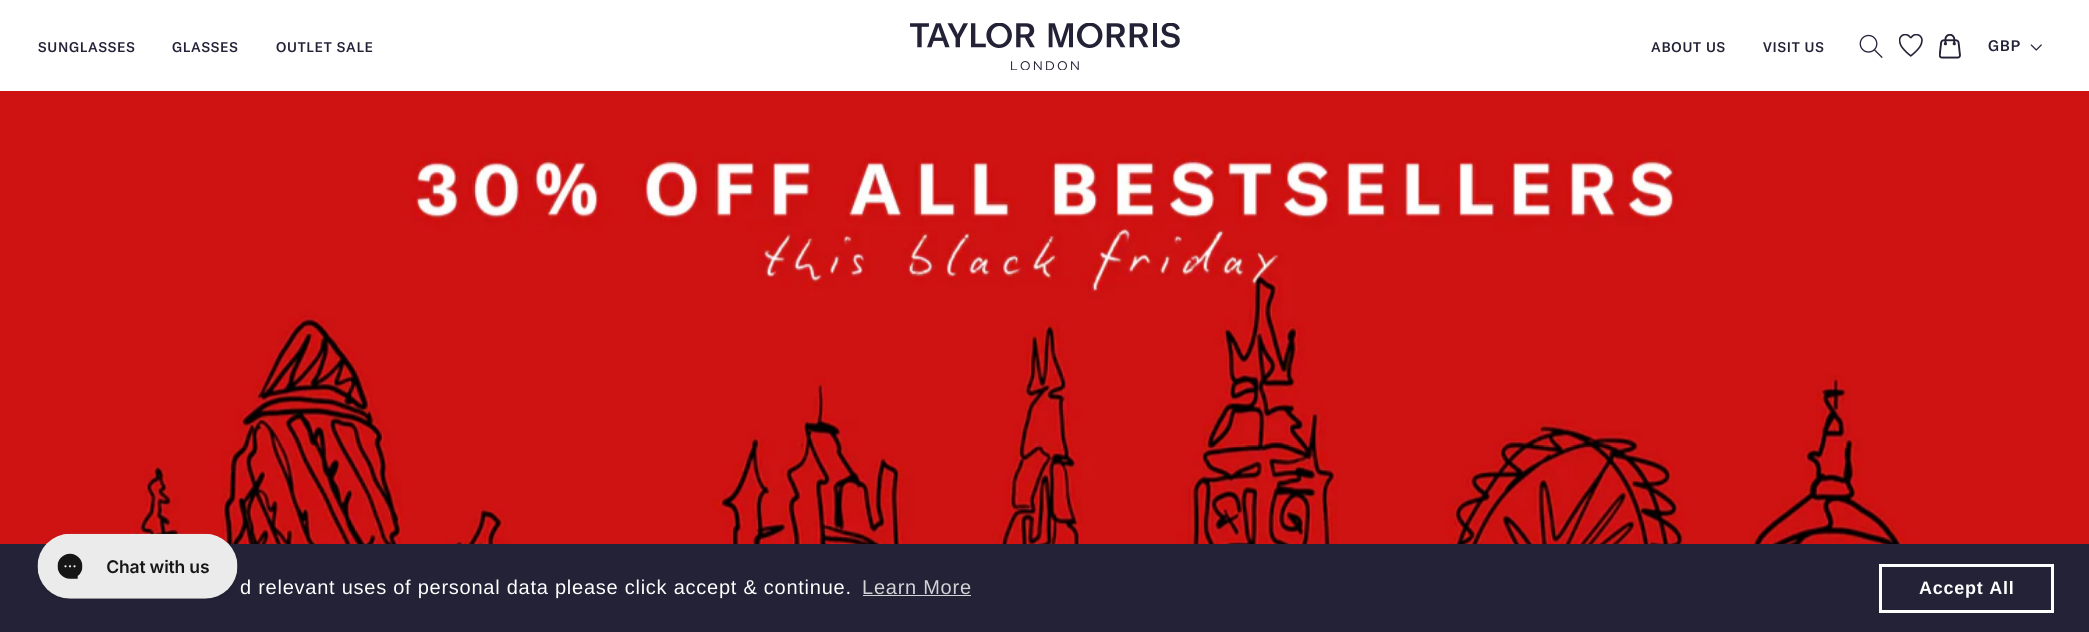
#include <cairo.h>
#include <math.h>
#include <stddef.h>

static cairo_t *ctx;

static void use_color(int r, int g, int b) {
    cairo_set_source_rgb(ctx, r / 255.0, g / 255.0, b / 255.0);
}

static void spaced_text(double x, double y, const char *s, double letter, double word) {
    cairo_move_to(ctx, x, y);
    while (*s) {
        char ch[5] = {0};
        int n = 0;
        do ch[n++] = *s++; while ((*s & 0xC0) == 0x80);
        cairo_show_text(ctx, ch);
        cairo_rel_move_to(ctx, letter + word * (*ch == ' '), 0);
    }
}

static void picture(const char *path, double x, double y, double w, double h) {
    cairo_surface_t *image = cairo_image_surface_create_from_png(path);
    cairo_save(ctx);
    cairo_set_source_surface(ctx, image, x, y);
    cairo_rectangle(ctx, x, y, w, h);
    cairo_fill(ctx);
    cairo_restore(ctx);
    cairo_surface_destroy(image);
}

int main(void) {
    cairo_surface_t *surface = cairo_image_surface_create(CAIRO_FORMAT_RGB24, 2089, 632);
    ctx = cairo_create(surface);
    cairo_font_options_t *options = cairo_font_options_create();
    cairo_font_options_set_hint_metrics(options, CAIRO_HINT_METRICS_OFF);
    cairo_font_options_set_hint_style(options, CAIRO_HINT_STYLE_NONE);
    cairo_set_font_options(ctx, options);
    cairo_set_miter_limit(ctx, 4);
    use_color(255, 255, 255);
    cairo_paint(ctx);
    cairo_select_font_face(ctx, "GT America Medium", CAIRO_FONT_SLANT_NORMAL, CAIRO_FONT_WEIGHT_NORMAL);
    cairo_set_font_size(ctx, 13.75);
    use_color(35, 34, 55);
    spaced_text(38, 52, "SUNGLASSES", 0.75, 0);
    spaced_text(172, 52, "GLASSES", 0.75, 0);
    spaced_text(276, 52, "OUTLET SALE", 0.75, 0);
    picture("img1.png", 910, 23, 270, 47);
    spaced_text(1651, 52, "ABOUT US", 0.75, 0);
    spaced_text(1763, 52, "VISIT US", 0.75, 0);
    picture("img2.png", 1859, 34, 24, 24);
    picture("img3.png", 1899, 34, 24, 23);
    picture("img4.png", 1939, 34, 22, 25);
    cairo_set_font_size(ctx, 15);
    spaced_text(1988, 51, "GBP", 0.75, 0);
    picture("img5.png", 2030, 44, 12, 7);
    picture("img6.png", 0, 91, 2089, 453);
    cairo_rectangle(ctx, 0, 544, 2089, 88);
    cairo_fill(ctx);
    picture("img7.png", 37, 533, 201, 67);
    cairo_select_font_face(ctx, "Liberation Sans", CAIRO_FONT_SLANT_NORMAL, CAIRO_FONT_WEIGHT_NORMAL);
    cairo_set_font_size(ctx, 20);
    use_color(255, 255, 255);
    spaced_text(240, 594, "d relevant uses of personal data please click accept & continue.", 0.75, 0);
    use_color(211, 211, 215);
    spaced_text(862, 594, "Learn More", 0.75, 0);
    cairo_rectangle(ctx, 863, 595, 108, 1);
    cairo_fill(ctx);
    cairo_rectangle(ctx, 1880.5, 565.5, 172, 46);
    use_color(255, 255, 255);
    cairo_set_line_width(ctx, 3);
    cairo_stroke(ctx);
    cairo_select_font_face(ctx, "Liberation Sans", CAIRO_FONT_SLANT_NORMAL, CAIRO_FONT_WEIGHT_BOLD);
    cairo_set_font_size(ctx, 18);
    spaced_text(1919, 594, "Accept All", 0.75, 0);
    cairo_surface_write_to_png(surface, "result.png");
    cairo_font_options_destroy(options);
    cairo_destroy(ctx);
    cairo_surface_destroy(surface);
    return 0;
}
